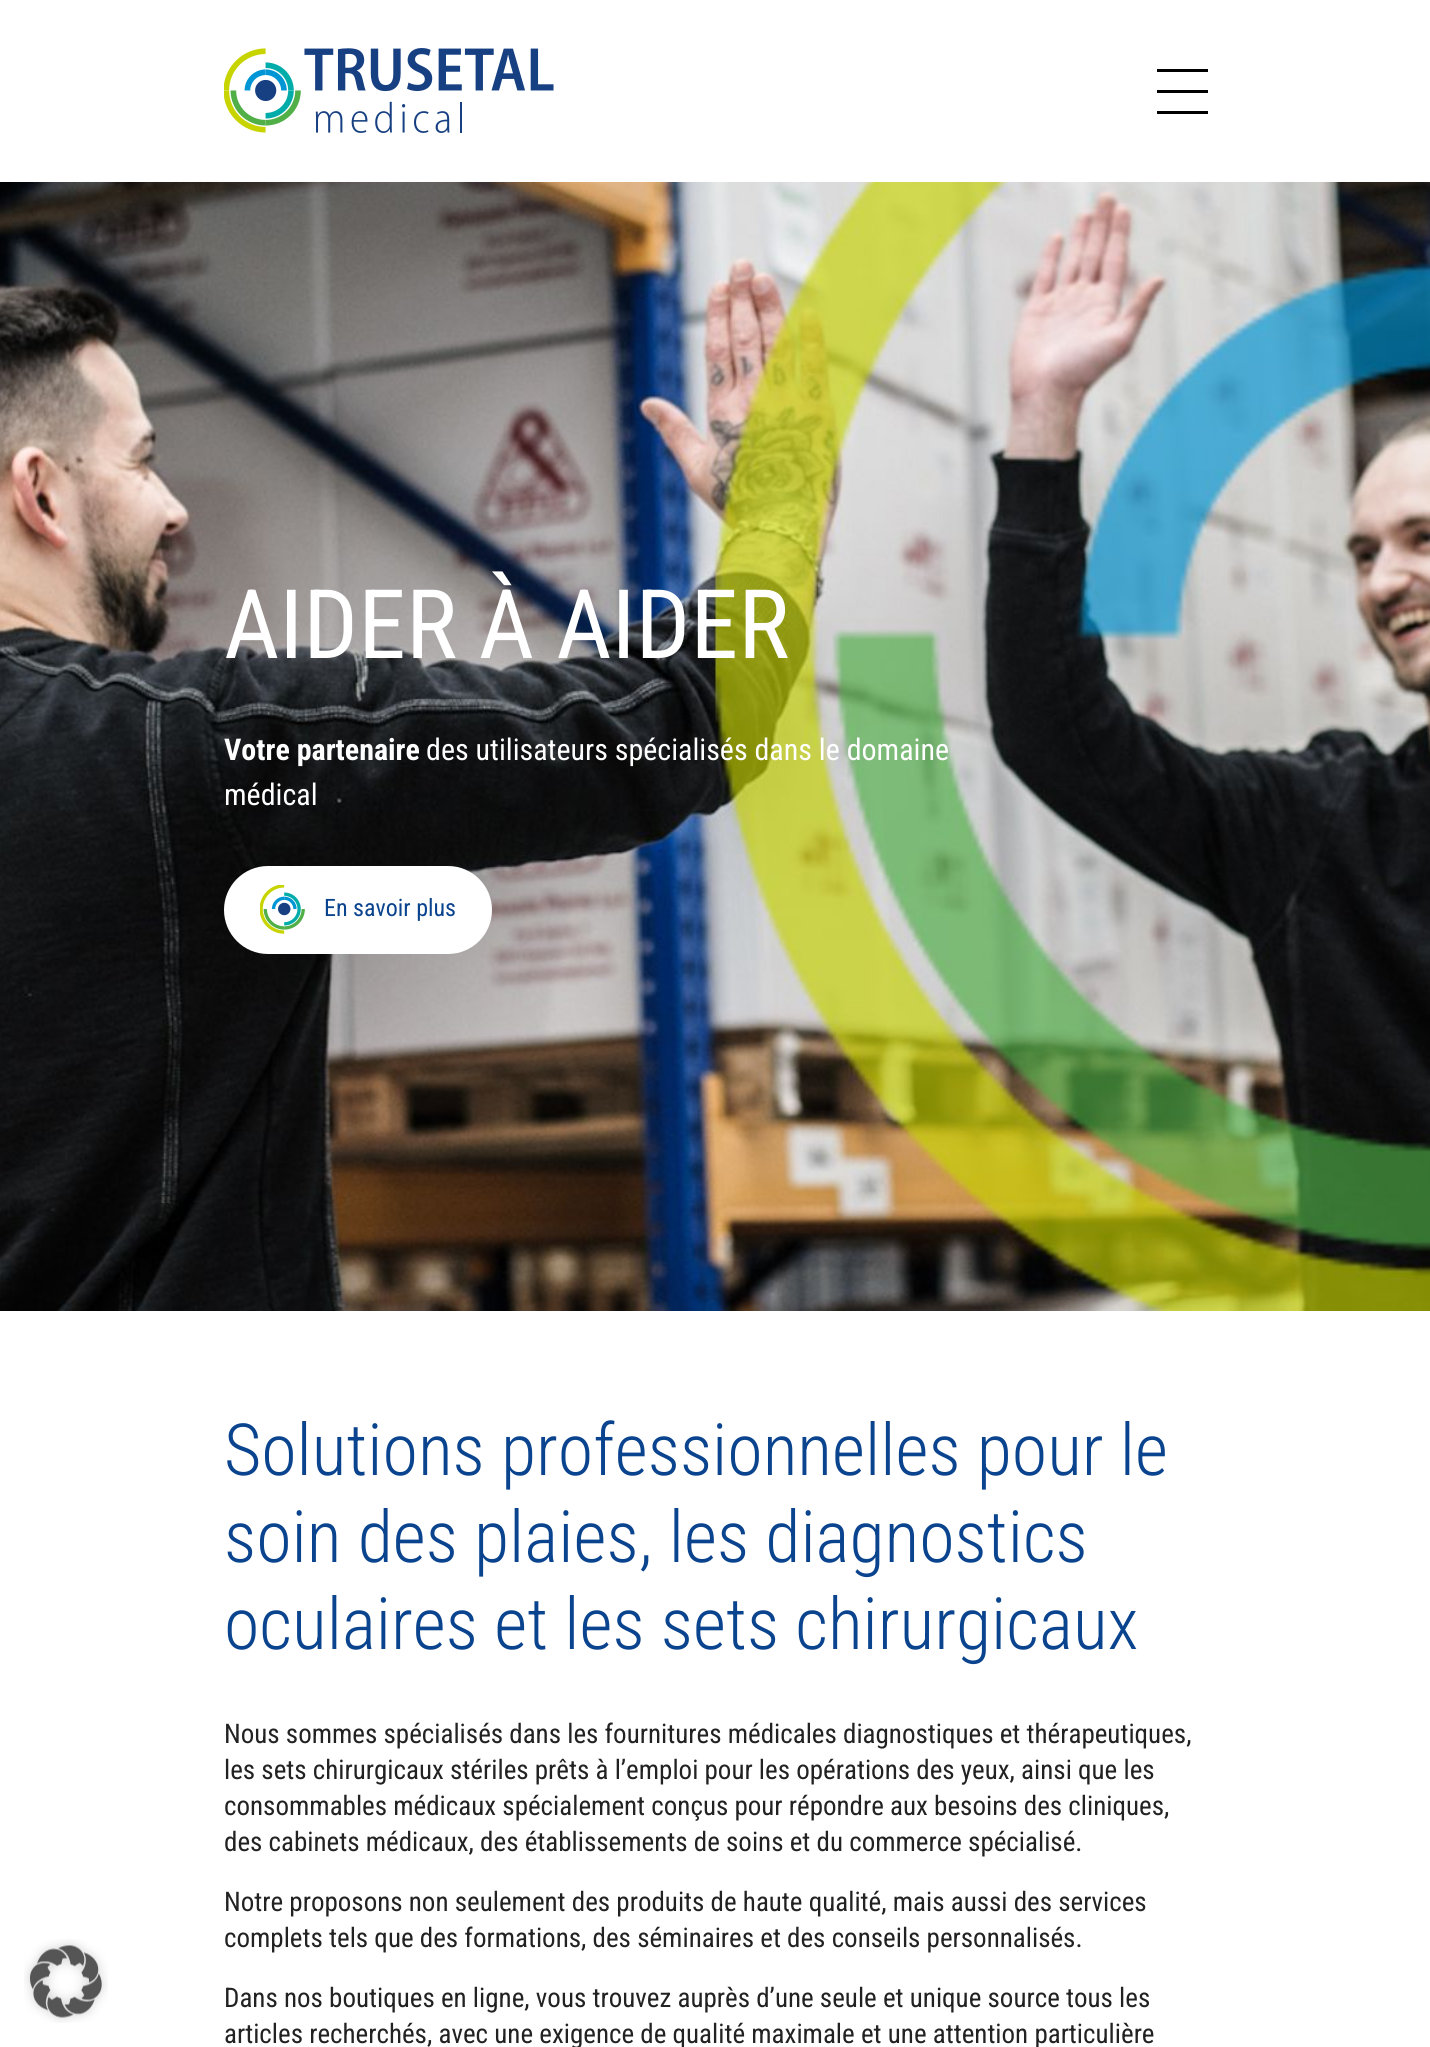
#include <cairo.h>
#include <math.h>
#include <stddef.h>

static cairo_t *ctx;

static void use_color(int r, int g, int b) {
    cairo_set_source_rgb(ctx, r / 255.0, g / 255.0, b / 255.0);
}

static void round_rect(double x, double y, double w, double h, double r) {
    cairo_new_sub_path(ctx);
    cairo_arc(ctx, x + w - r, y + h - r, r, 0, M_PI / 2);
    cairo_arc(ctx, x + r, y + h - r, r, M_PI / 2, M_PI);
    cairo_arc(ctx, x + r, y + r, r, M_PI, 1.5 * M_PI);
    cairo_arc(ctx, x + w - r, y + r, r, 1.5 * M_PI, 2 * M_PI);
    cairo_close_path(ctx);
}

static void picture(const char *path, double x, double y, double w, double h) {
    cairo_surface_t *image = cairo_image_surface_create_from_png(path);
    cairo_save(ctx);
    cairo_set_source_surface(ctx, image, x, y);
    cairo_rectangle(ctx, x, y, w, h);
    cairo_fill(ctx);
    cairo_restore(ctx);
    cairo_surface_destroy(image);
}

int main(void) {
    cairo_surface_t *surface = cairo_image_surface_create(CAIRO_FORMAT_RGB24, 1430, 2047);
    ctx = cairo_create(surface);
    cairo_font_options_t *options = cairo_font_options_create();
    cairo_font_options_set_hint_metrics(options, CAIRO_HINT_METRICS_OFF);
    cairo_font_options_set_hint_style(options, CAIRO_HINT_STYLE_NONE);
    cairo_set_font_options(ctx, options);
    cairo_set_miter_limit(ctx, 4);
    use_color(255, 255, 255);
    cairo_paint(ctx);
    picture("img1.png", 224, 48, 330, 85);
    use_color(0, 0, 0);
    cairo_rectangle(ctx, 1157, 69, 51, 3);
    cairo_fill(ctx);
    cairo_rectangle(ctx, 1157, 90, 51, 3);
    cairo_fill(ctx);
    cairo_rectangle(ctx, 1157, 111, 51, 3);
    cairo_fill(ctx);
    picture("img2.png", 24, 1939, 84, 84);
    picture("img3.png", 0, 182, 1430, 1129);
    cairo_select_font_face(ctx, "Roboto Condensed", CAIRO_FONT_SLANT_NORMAL, CAIRO_FONT_WEIGHT_NORMAL);
    cairo_set_font_size(ctx, 96);
    use_color(255, 255, 255);
    cairo_move_to(ctx, 224, 658);
    cairo_show_text(ctx, "AIDER À AIDER");
    cairo_select_font_face(ctx, "Roboto Condensed", CAIRO_FONT_SLANT_NORMAL, CAIRO_FONT_WEIGHT_BOLD);
    cairo_set_font_size(ctx, 30);
    cairo_move_to(ctx, 224, 760);
    cairo_show_text(ctx, "Votre partenaire");
    cairo_select_font_face(ctx, "Roboto Condensed", CAIRO_FONT_SLANT_NORMAL, CAIRO_FONT_WEIGHT_NORMAL);
    cairo_move_to(ctx, 426, 760);
    cairo_show_text(ctx, "des utilisateurs spécialisés dans le domaine");
    cairo_move_to(ctx, 224, 805);
    cairo_show_text(ctx, "médical");
    round_rect(224, 866, 268, 88, 44);
    cairo_fill(ctx);
    picture("img4.png", 260, 885, 31, 49);
    picture("img5.png", 263, 892, 42, 38);
    cairo_set_font_size(ctx, 24);
    use_color(10, 67, 142);
    cairo_move_to(ctx, 324, 916);
    cairo_show_text(ctx, "En savoir plus");
    cairo_select_font_face(ctx, "Roboto Condensed Light", CAIRO_FONT_SLANT_NORMAL, CAIRO_FONT_WEIGHT_NORMAL);
    cairo_set_font_size(ctx, 72);
    cairo_move_to(ctx, 224, 1475);
    cairo_show_text(ctx, "Solutions professionnelles pour le");
    cairo_move_to(ctx, 224, 1562);
    cairo_show_text(ctx, "soin des plaies, les diagnostics");
    cairo_move_to(ctx, 224, 1649);
    cairo_show_text(ctx, "oculaires et les sets chirurgicaux");
    cairo_select_font_face(ctx, "Roboto Condensed", CAIRO_FONT_SLANT_NORMAL, CAIRO_FONT_WEIGHT_NORMAL);
    cairo_set_font_size(ctx, 27);
    use_color(34, 34, 34);
    cairo_move_to(ctx, 224, 1743);
    cairo_show_text(ctx, "Nous sommes spécialisés dans les fournitures médicales diagnostiques et thérapeutiques,");
    cairo_move_to(ctx, 224, 1779);
    cairo_show_text(ctx, "les sets chirurgicaux stériles prêts à l’emploi pour les opérations des yeux, ainsi que les");
    cairo_move_to(ctx, 224, 1815);
    cairo_show_text(ctx, "consommables médicaux spécialement conçus pour répondre aux besoins des cliniques,");
    cairo_move_to(ctx, 224, 1851);
    cairo_show_text(ctx, "des cabinets médicaux, des établissements de soins et du commerce spécialisé.");
    cairo_move_to(ctx, 224, 1911);
    cairo_show_text(ctx, "Notre proposons non seulement des produits de haute qualité, mais aussi des services");
    cairo_move_to(ctx, 224, 1947);
    cairo_show_text(ctx, "complets tels que des formations, des séminaires et des conseils personnalisés.");
    cairo_move_to(ctx, 224, 2007);
    cairo_show_text(ctx, "Dans nos boutiques en ligne, vous trouvez auprès d’une seule et unique source tous les");
    cairo_move_to(ctx, 224, 2043);
    cairo_show_text(ctx, "articles recherchés, avec une exigence de qualité maximale et une attention particulière");
    cairo_surface_write_to_png(surface, "result.png");
    cairo_font_options_destroy(options);
    cairo_destroy(ctx);
    cairo_surface_destroy(surface);
    return 0;
}
